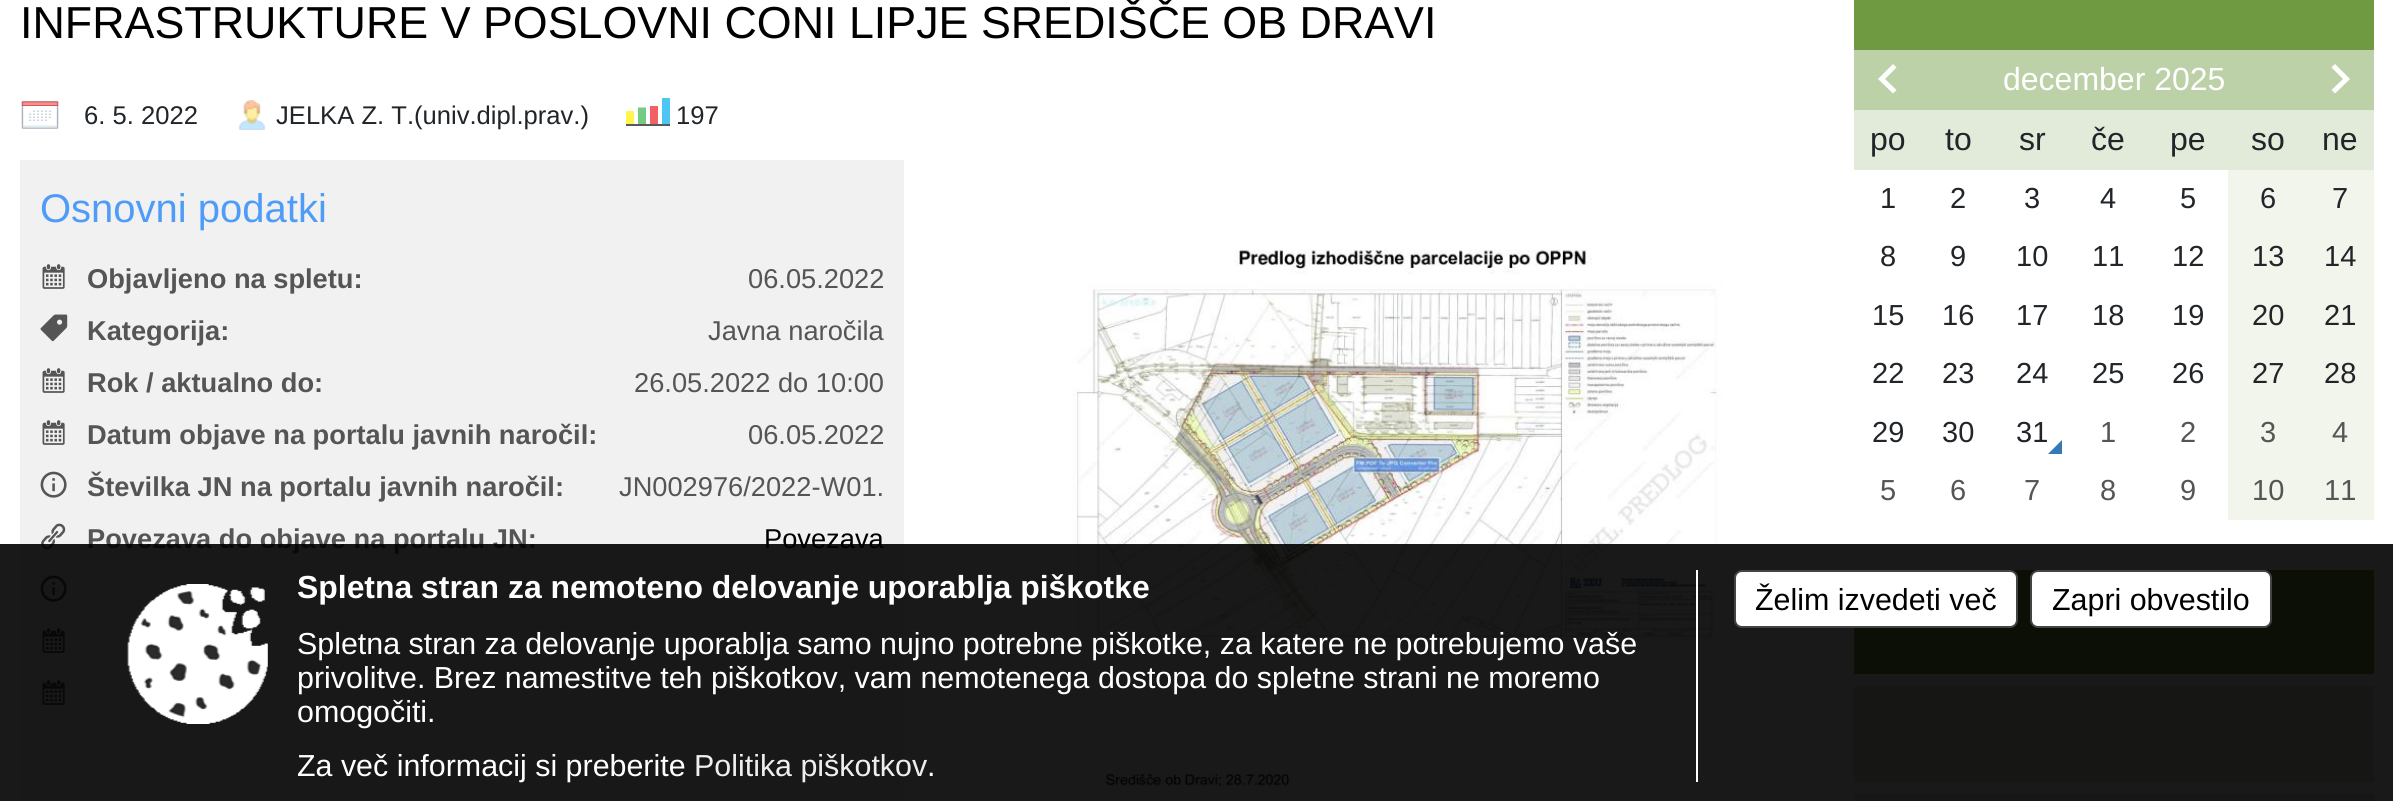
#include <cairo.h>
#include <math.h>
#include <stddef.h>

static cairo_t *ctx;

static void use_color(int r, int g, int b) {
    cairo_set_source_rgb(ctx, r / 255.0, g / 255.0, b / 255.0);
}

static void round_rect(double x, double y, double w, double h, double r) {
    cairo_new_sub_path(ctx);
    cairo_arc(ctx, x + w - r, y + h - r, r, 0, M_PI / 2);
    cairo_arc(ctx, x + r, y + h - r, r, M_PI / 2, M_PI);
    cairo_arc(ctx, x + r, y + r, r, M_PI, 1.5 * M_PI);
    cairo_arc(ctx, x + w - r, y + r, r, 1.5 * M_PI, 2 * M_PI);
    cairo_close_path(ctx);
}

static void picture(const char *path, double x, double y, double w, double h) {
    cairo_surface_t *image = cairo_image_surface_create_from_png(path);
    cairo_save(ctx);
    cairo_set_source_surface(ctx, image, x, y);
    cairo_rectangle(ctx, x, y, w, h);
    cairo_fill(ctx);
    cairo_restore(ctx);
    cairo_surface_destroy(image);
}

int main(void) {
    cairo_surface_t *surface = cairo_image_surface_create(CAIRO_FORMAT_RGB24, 2393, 801);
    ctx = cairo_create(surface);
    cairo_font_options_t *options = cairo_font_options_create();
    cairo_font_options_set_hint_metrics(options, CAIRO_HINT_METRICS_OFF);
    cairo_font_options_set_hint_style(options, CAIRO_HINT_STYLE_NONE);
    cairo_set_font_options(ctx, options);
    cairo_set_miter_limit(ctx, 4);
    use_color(255, 255, 255);
    cairo_paint(ctx);
    cairo_select_font_face(ctx, "Liberation Sans", CAIRO_FONT_SLANT_NORMAL, CAIRO_FONT_WEIGHT_NORMAL);
    cairo_set_font_size(ctx, 44.8);
    use_color(0, 0, 0);
    cairo_move_to(ctx, 20, 38);
    cairo_show_text(ctx, "INFRASTRUKTURE V POSLOVNI CONI LIPJE SREDIŠČE OB DRAVI");
    picture("img1.png", 21, 101, 38, 28);
    cairo_set_font_size(ctx, 25.6);
    use_color(33, 37, 41);
    cairo_move_to(ctx, 84, 124);
    cairo_show_text(ctx, "6. 5. 2022");
    picture("img2.png", 238, 100, 28, 30);
    cairo_move_to(ctx, 276, 124);
    cairo_show_text(ctx, "JELKA Z. T.(univ.dipl.prav.)");
    picture("img3.png", 626, 98, 44, 28);
    cairo_move_to(ctx, 676, 124);
    cairo_show_text(ctx, "197");
    use_color(241, 241, 241);
    cairo_rectangle(ctx, 20, 160, 884, 641);
    cairo_fill(ctx);
    cairo_set_font_size(ctx, 40);
    use_color(79, 156, 248);
    cairo_move_to(ctx, 40, 222);
    cairo_show_text(ctx, "Osnovni podatki");
    picture("img4.png", 42, 264, 23, 25);
    cairo_select_font_face(ctx, "Liberation Sans", CAIRO_FONT_SLANT_NORMAL, CAIRO_FONT_WEIGHT_BOLD);
    cairo_set_font_size(ctx, 27.25);
    use_color(85, 85, 85);
    cairo_move_to(ctx, 87, 288);
    cairo_show_text(ctx, "Objavljeno na spletu:");
    cairo_select_font_face(ctx, "Liberation Sans", CAIRO_FONT_SLANT_NORMAL, CAIRO_FONT_WEIGHT_NORMAL);
    cairo_move_to(ctx, 748, 288);
    cairo_show_text(ctx, "06.05.2022");
    picture("img5.png", 40, 314, 28, 28);
    cairo_select_font_face(ctx, "Liberation Sans", CAIRO_FONT_SLANT_NORMAL, CAIRO_FONT_WEIGHT_BOLD);
    cairo_move_to(ctx, 87, 340);
    cairo_show_text(ctx, "Kategorija:");
    cairo_select_font_face(ctx, "Liberation Sans", CAIRO_FONT_SLANT_NORMAL, CAIRO_FONT_WEIGHT_NORMAL);
    cairo_move_to(ctx, 708, 340);
    cairo_show_text(ctx, "Javna naročila");
    picture("img4.png", 42, 368, 23, 25);
    cairo_select_font_face(ctx, "Liberation Sans", CAIRO_FONT_SLANT_NORMAL, CAIRO_FONT_WEIGHT_BOLD);
    cairo_move_to(ctx, 87, 392);
    cairo_show_text(ctx, "Rok / aktualno do:");
    cairo_select_font_face(ctx, "Liberation Sans", CAIRO_FONT_SLANT_NORMAL, CAIRO_FONT_WEIGHT_NORMAL);
    cairo_move_to(ctx, 634, 392);
    cairo_show_text(ctx, "26.05.2022 do 10:00");
    picture("img4.png", 42, 420, 23, 25);
    cairo_select_font_face(ctx, "Liberation Sans", CAIRO_FONT_SLANT_NORMAL, CAIRO_FONT_WEIGHT_BOLD);
    cairo_move_to(ctx, 87, 444);
    cairo_show_text(ctx, "Datum objave na portalu javnih naročil:");
    cairo_select_font_face(ctx, "Liberation Sans", CAIRO_FONT_SLANT_NORMAL, CAIRO_FONT_WEIGHT_NORMAL);
    cairo_move_to(ctx, 748, 444);
    cairo_show_text(ctx, "06.05.2022");
    picture("img6.png", 40, 471, 27, 27);
    cairo_select_font_face(ctx, "Liberation Sans", CAIRO_FONT_SLANT_NORMAL, CAIRO_FONT_WEIGHT_BOLD);
    cairo_move_to(ctx, 87, 496);
    cairo_show_text(ctx, "Številka JN na portalu javnih naročil:");
    cairo_select_font_face(ctx, "Liberation Sans", CAIRO_FONT_SLANT_NORMAL, CAIRO_FONT_WEIGHT_NORMAL);
    cairo_move_to(ctx, 619, 496);
    cairo_show_text(ctx, "JN002976/2022-W01.");
    picture("img7.png", 41, 523, 25, 27);
    cairo_select_font_face(ctx, "Liberation Sans", CAIRO_FONT_SLANT_NORMAL, CAIRO_FONT_WEIGHT_BOLD);
    cairo_move_to(ctx, 87, 548);
    cairo_show_text(ctx, "Povezava do objave na portalu JN:");
    cairo_select_font_face(ctx, "Liberation Sans", CAIRO_FONT_SLANT_NORMAL, CAIRO_FONT_WEIGHT_NORMAL);
    use_color(0, 0, 0);
    cairo_move_to(ctx, 764, 548);
    cairo_show_text(ctx, "Povezava");
    picture("img6.png", 40, 575, 27, 27);
    picture("img4.png", 42, 628, 23, 25);
    picture("img4.png", 42, 680, 23, 25);
    picture("img8.png", 1072, 249, 651, 539);
    use_color(111, 154, 65);
    cairo_rectangle(ctx, 1854, 0, 520, 50);
    cairo_fill(ctx);
    use_color(189, 209, 168);
    cairo_rectangle(ctx, 1854, 50, 520, 60);
    cairo_fill(ctx);
    use_color(255, 255, 255);
    cairo_new_path(ctx);
    cairo_move_to(ctx, 1896.5, 90);
    cairo_line_to(ctx, 1893, 93.5);
    cairo_line_to(ctx, 1878, 79);
    cairo_line_to(ctx, 1893, 64);
    cairo_line_to(ctx, 1896.5, 67.5);
    cairo_line_to(ctx, 1885, 79);
    cairo_close_path(ctx);
    cairo_fill(ctx);
    cairo_set_font_size(ctx, 32);
    cairo_move_to(ctx, 2003, 90);
    cairo_show_text(ctx, "december 2025");
    cairo_new_path(ctx);
    cairo_move_to(ctx, 2331.5, 90);
    cairo_line_to(ctx, 2343, 79);
    cairo_line_to(ctx, 2331.5, 67.5);
    cairo_line_to(ctx, 2335, 64);
    cairo_line_to(ctx, 2350, 79);
    cairo_line_to(ctx, 2335, 93.5);
    cairo_close_path(ctx);
    cairo_fill(ctx);
    use_color(226, 235, 217);
    cairo_rectangle(ctx, 1854, 110, 520, 60);
    cairo_fill(ctx);
    use_color(33, 37, 41);
    cairo_move_to(ctx, 1870, 150);
    cairo_show_text(ctx, "po");
    cairo_move_to(ctx, 1945, 150);
    cairo_show_text(ctx, "to");
    cairo_move_to(ctx, 2019, 150);
    cairo_show_text(ctx, "sr");
    cairo_move_to(ctx, 2091, 150);
    cairo_show_text(ctx, "če");
    cairo_move_to(ctx, 2170, 150);
    cairo_show_text(ctx, "pe");
    cairo_move_to(ctx, 2251, 150);
    cairo_show_text(ctx, "so");
    cairo_move_to(ctx, 2322, 150);
    cairo_show_text(ctx, "ne");
    cairo_set_font_size(ctx, 29);
    cairo_move_to(ctx, 1880, 208);
    cairo_show_text(ctx, "1");
    cairo_move_to(ctx, 1950, 208);
    cairo_show_text(ctx, "2");
    cairo_move_to(ctx, 2024, 208);
    cairo_show_text(ctx, "3");
    cairo_move_to(ctx, 2100, 208);
    cairo_show_text(ctx, "4");
    cairo_move_to(ctx, 2180, 208);
    cairo_show_text(ctx, "5");
    use_color(241, 245, 236);
    cairo_rectangle(ctx, 2228, 170, 146, 58);
    cairo_fill(ctx);
    use_color(33, 37, 41);
    cairo_move_to(ctx, 2260, 208);
    cairo_show_text(ctx, "6");
    cairo_move_to(ctx, 2332, 208);
    cairo_show_text(ctx, "7");
    cairo_move_to(ctx, 1880, 266);
    cairo_show_text(ctx, "8");
    cairo_move_to(ctx, 1950, 266);
    cairo_show_text(ctx, "9");
    cairo_move_to(ctx, 2016, 266);
    cairo_show_text(ctx, "10");
    cairo_move_to(ctx, 2092, 266);
    cairo_show_text(ctx, "11");
    cairo_move_to(ctx, 2172, 266);
    cairo_show_text(ctx, "12");
    use_color(241, 245, 236);
    cairo_rectangle(ctx, 2228, 228, 146, 58);
    cairo_fill(ctx);
    use_color(33, 37, 41);
    cairo_move_to(ctx, 2252, 266);
    cairo_show_text(ctx, "13");
    cairo_move_to(ctx, 2324, 266);
    cairo_show_text(ctx, "14");
    cairo_move_to(ctx, 1872, 325);
    cairo_show_text(ctx, "15");
    cairo_move_to(ctx, 1942, 325);
    cairo_show_text(ctx, "16");
    cairo_move_to(ctx, 2016, 325);
    cairo_show_text(ctx, "17");
    cairo_move_to(ctx, 2092, 325);
    cairo_show_text(ctx, "18");
    cairo_move_to(ctx, 2172, 325);
    cairo_show_text(ctx, "19");
    use_color(241, 245, 236);
    cairo_rectangle(ctx, 2228, 286, 146, 60);
    cairo_fill(ctx);
    use_color(33, 37, 41);
    cairo_move_to(ctx, 2252, 325);
    cairo_show_text(ctx, "20");
    cairo_move_to(ctx, 2324, 325);
    cairo_show_text(ctx, "21");
    cairo_move_to(ctx, 1872, 383);
    cairo_show_text(ctx, "22");
    cairo_move_to(ctx, 1942, 383);
    cairo_show_text(ctx, "23");
    cairo_move_to(ctx, 2016, 383);
    cairo_show_text(ctx, "24");
    cairo_move_to(ctx, 2092, 383);
    cairo_show_text(ctx, "25");
    cairo_move_to(ctx, 2172, 383);
    cairo_show_text(ctx, "26");
    use_color(241, 245, 236);
    cairo_rectangle(ctx, 2228, 346, 146, 58);
    cairo_fill(ctx);
    use_color(33, 37, 41);
    cairo_move_to(ctx, 2252, 383);
    cairo_show_text(ctx, "27");
    cairo_move_to(ctx, 2324, 383);
    cairo_show_text(ctx, "28");
    cairo_move_to(ctx, 1872, 442);
    cairo_show_text(ctx, "29");
    cairo_move_to(ctx, 1942, 442);
    cairo_show_text(ctx, "30");
    cairo_move_to(ctx, 2016, 442);
    cairo_show_text(ctx, "31");
    use_color(51, 122, 183);
    cairo_new_path(ctx);
    cairo_move_to(ctx, 2062, 454);
    cairo_line_to(ctx, 2048, 454);
    cairo_line_to(ctx, 2062, 440);
    cairo_close_path(ctx);
    cairo_fill(ctx);
    use_color(85, 85, 85);
    cairo_move_to(ctx, 2100, 442);
    cairo_show_text(ctx, "1");
    cairo_move_to(ctx, 2180, 442);
    cairo_show_text(ctx, "2");
    use_color(241, 245, 236);
    cairo_rectangle(ctx, 2228, 404, 146, 58);
    cairo_fill(ctx);
    use_color(85, 85, 85);
    cairo_move_to(ctx, 2260, 442);
    cairo_show_text(ctx, "3");
    cairo_move_to(ctx, 2332, 442);
    cairo_show_text(ctx, "4");
    cairo_move_to(ctx, 1880, 500);
    cairo_show_text(ctx, "5");
    cairo_move_to(ctx, 1950, 500);
    cairo_show_text(ctx, "6");
    cairo_move_to(ctx, 2024, 500);
    cairo_show_text(ctx, "7");
    cairo_move_to(ctx, 2100, 500);
    cairo_show_text(ctx, "8");
    cairo_move_to(ctx, 2180, 500);
    cairo_show_text(ctx, "9");
    use_color(241, 245, 236);
    cairo_rectangle(ctx, 2228, 462, 146, 58);
    cairo_fill(ctx);
    use_color(85, 85, 85);
    cairo_move_to(ctx, 2252, 500);
    cairo_show_text(ctx, "10");
    cairo_move_to(ctx, 2324, 500);
    cairo_show_text(ctx, "11");
    use_color(111, 154, 65);
    cairo_rectangle(ctx, 1854, 570, 520, 104);
    cairo_fill(ctx);
    use_color(225, 237, 212);
    cairo_rectangle(ctx, 1854, 686, 520, 96);
    cairo_fill(ctx);
    cairo_rectangle(ctx, 1854, 794, 520, 7);
    cairo_fill(ctx);
    cairo_set_source_rgba(ctx, 0, 0, 0, 0.9);
    cairo_rectangle(ctx, 0, 544, 2393, 257);
    cairo_fill(ctx);
    picture("img9.png", 127, 584, 141, 140);
    use_color(255, 255, 255);
    cairo_rectangle(ctx, 1696, 570, 2, 212);
    cairo_fill(ctx);
    cairo_select_font_face(ctx, "Liberation Sans", CAIRO_FONT_SLANT_NORMAL, CAIRO_FONT_WEIGHT_BOLD);
    cairo_set_font_size(ctx, 31.9);
    cairo_move_to(ctx, 297, 598);
    cairo_show_text(ctx, "Spletna stran za nemoteno delovanje uporablja piškotke");
    cairo_select_font_face(ctx, "Liberation Sans", CAIRO_FONT_SLANT_NORMAL, CAIRO_FONT_WEIGHT_NORMAL);
    cairo_set_font_size(ctx, 30.4);
    cairo_move_to(ctx, 297, 654);
    cairo_show_text(ctx, "Spletna stran za delovanje uporablja samo nujno potrebne piškotke, za katere ne potrebujemo vaše");
    cairo_move_to(ctx, 297, 688);
    cairo_show_text(ctx, "privolitve. Brez namestitve teh piškotkov, vam nemotenega dostopa do spletne strani ne moremo");
    cairo_move_to(ctx, 297, 722);
    cairo_show_text(ctx, "omogočiti.");
    cairo_move_to(ctx, 297, 776);
    cairo_show_text(ctx, "Za več informacij si preberite");
    use_color(238, 238, 238);
    cairo_move_to(ctx, 694, 776);
    cairo_show_text(ctx, "Politika piškotkov");
    use_color(255, 255, 255);
    cairo_move_to(ctx, 927, 776);
    cairo_show_text(ctx, ".");
    round_rect(1735, 571, 282, 56, 7);
    cairo_fill_preserve(ctx);
    use_color(68, 68, 68);
    cairo_stroke(ctx);
    use_color(0, 0, 0);
    cairo_move_to(ctx, 1755, 610);
    cairo_show_text(ctx, "Želim izvedeti več");
    use_color(255, 255, 255);
    round_rect(2031, 571, 240, 56, 7);
    cairo_fill_preserve(ctx);
    use_color(68, 68, 68);
    cairo_stroke(ctx);
    use_color(0, 0, 0);
    cairo_move_to(ctx, 2052, 610);
    cairo_show_text(ctx, "Zapri obvestilo");
    cairo_surface_write_to_png(surface, "result.png");
    cairo_font_options_destroy(options);
    cairo_destroy(ctx);
    cairo_surface_destroy(surface);
    return 0;
}
